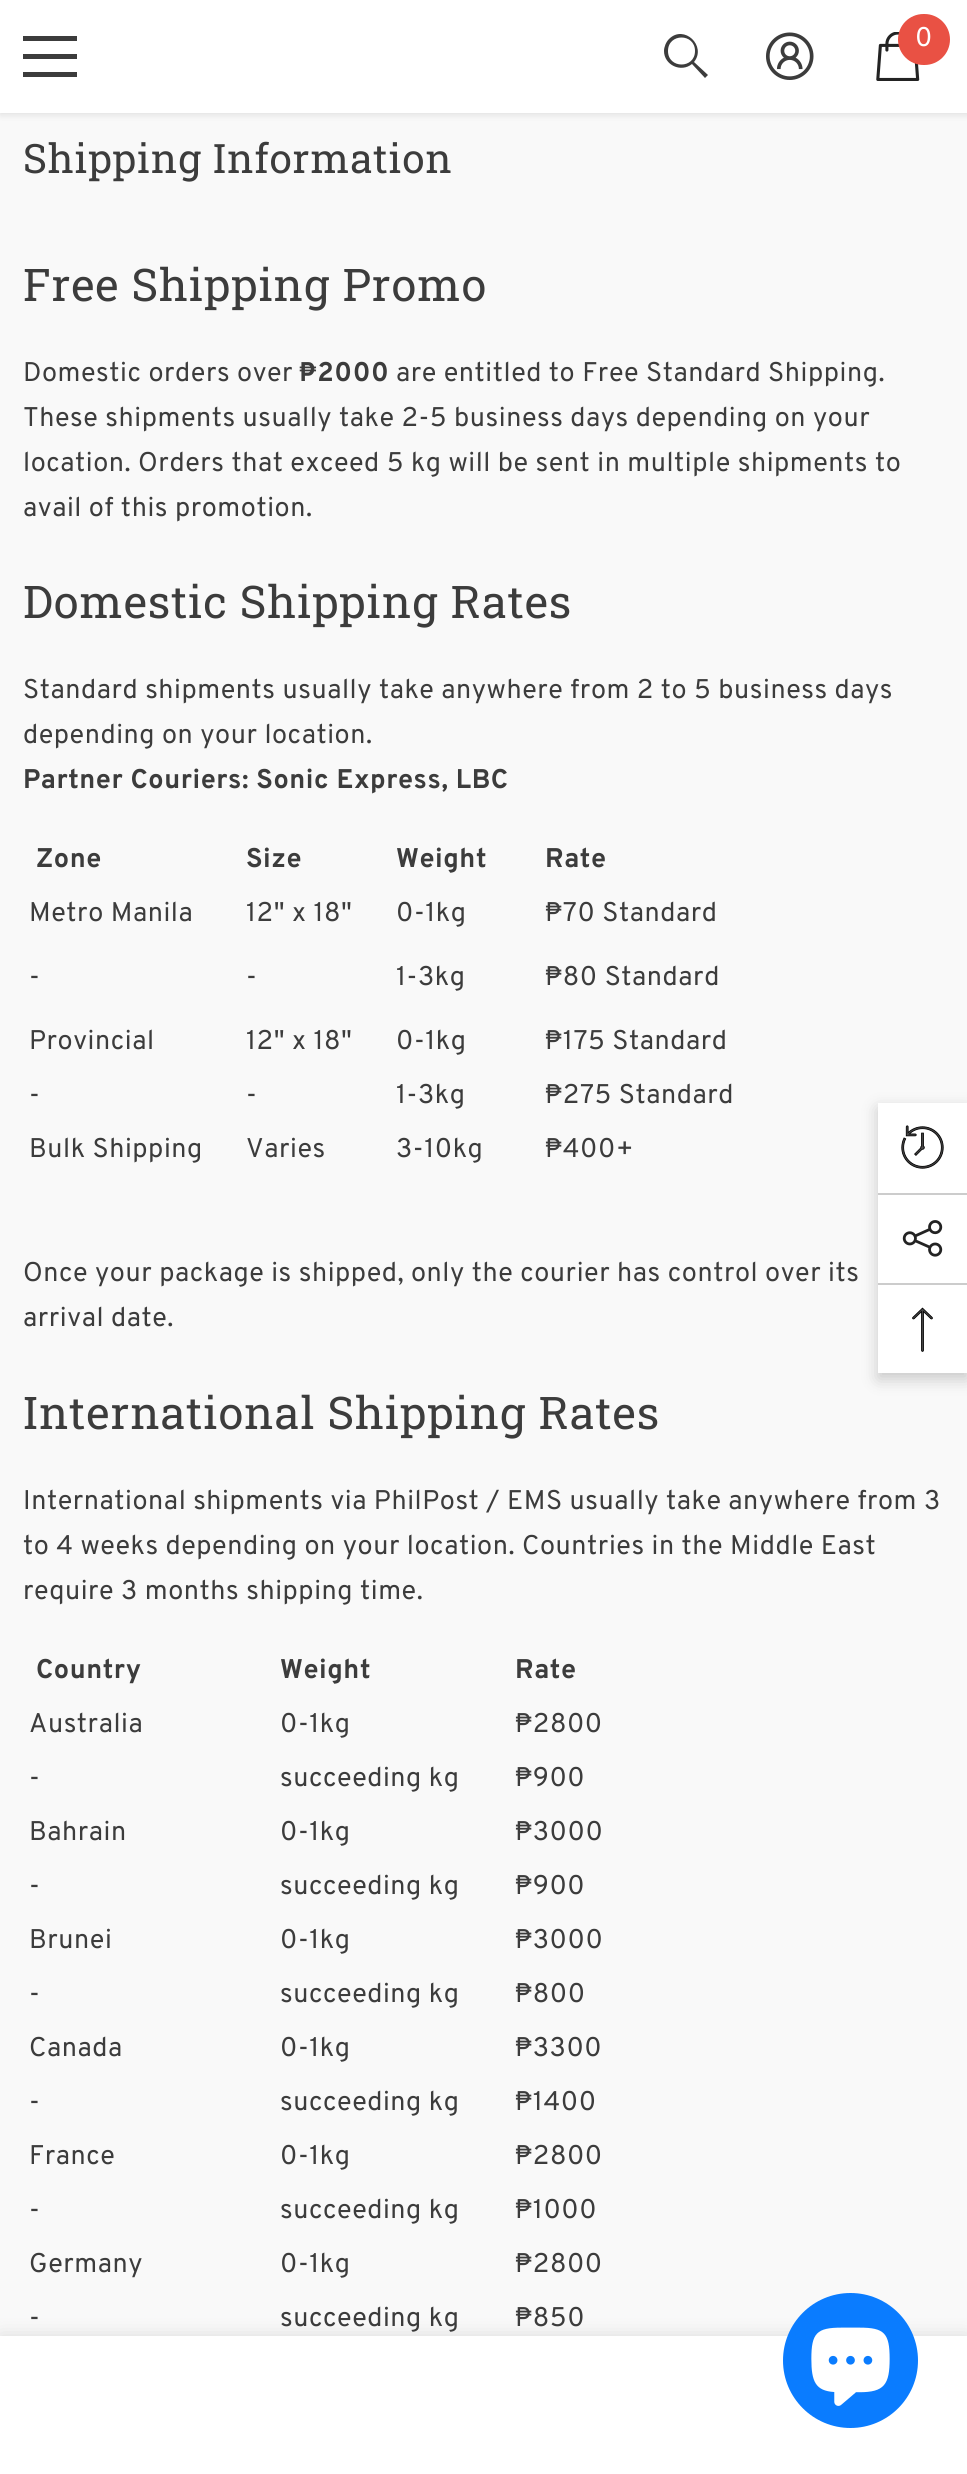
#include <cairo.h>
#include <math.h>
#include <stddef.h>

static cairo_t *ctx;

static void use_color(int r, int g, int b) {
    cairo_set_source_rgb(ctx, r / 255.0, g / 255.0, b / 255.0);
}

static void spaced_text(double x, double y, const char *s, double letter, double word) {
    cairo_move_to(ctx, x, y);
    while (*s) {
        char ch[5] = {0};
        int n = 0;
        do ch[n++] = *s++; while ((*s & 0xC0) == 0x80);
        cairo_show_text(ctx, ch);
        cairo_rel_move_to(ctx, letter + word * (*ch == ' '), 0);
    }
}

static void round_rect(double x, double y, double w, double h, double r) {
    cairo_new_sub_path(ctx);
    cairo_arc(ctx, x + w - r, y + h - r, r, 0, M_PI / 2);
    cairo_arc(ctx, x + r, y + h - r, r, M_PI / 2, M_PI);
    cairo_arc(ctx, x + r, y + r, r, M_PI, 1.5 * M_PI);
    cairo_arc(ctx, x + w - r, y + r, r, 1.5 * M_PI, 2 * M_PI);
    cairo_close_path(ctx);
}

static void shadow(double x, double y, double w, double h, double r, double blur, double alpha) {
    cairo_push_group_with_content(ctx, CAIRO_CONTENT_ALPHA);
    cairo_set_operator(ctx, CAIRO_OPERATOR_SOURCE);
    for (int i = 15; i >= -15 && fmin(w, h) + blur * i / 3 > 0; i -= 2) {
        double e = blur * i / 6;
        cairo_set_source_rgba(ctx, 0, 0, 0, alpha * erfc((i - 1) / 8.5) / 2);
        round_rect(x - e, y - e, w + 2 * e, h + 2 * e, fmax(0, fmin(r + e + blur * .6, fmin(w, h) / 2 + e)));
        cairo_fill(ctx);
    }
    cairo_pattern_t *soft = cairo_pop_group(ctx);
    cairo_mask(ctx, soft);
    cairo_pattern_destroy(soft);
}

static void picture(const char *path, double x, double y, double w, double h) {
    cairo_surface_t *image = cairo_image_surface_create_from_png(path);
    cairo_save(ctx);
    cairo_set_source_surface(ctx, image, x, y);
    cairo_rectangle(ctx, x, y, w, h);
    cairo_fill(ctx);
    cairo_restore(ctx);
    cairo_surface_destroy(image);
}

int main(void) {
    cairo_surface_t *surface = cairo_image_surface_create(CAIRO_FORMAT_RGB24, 967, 2474);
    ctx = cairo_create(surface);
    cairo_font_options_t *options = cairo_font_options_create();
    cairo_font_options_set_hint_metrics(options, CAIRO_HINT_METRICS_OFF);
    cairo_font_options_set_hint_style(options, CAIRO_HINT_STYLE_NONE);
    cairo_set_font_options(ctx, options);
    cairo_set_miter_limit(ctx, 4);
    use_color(249, 249, 249);
    cairo_paint(ctx);
    use_color(0, 0, 0);
    shadow(0, 2, 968, 113, 0, 3.5, 0.1);
    use_color(255, 255, 255);
    cairo_rectangle(ctx, 0, 0, 967, 113);
    cairo_fill(ctx);
    use_color(60, 60, 60);
    cairo_rectangle(ctx, 23, 54, 54, 5);
    cairo_fill(ctx);
    cairo_rectangle(ctx, 23, 36, 54, 5);
    cairo_fill(ctx);
    cairo_rectangle(ctx, 23, 72, 54, 5);
    cairo_fill(ctx);
    cairo_new_path(ctx);
    cairo_move_to(ctx, 664, 51);
    cairo_curve_to(ctx, 664, 65, 681, 73, 692, 64);
    cairo_line_to(ctx, 705, 78);
    cairo_line_to(ctx, 708, 75);
    cairo_line_to(ctx, 694, 62);
    cairo_curve_to(ctx, 707, 46, 684, 24, 669, 39);
    cairo_curve_to(ctx, 666, 42, 664, 47, 664, 51);
    cairo_close_path(ctx);
    cairo_move_to(ctx, 668, 51);
    cairo_curve_to(ctx, 668, 33, 695, 33, 695, 51);
    cairo_curve_to(ctx, 695, 69, 668, 69, 668, 51);
    cairo_close_path(ctx);
    cairo_fill(ctx);
    picture("img1.png", 766, 32, 48, 48);
    picture("img2.png", 876, 32, 44, 49);
    use_color(233, 81, 68);
    round_rect(898, 14, 52, 51, 25.5);
    cairo_fill(ctx);
    cairo_select_font_face(ctx, "Overpass", CAIRO_FONT_SLANT_NORMAL, CAIRO_FONT_WEIGHT_NORMAL);
    cairo_set_font_size(ctx, 27);
    use_color(255, 255, 255);
    cairo_move_to(ctx, 915, 46);
    cairo_show_text(ctx, "0");
    cairo_select_font_face(ctx, "Roboto Slab", CAIRO_FONT_SLANT_NORMAL, CAIRO_FONT_WEIGHT_NORMAL);
    cairo_set_font_size(ctx, 40.5);
    use_color(60, 60, 60);
    spaced_text(23, 173, "Shipping Information", 0.8, 0);
    cairo_set_font_size(ctx, 45);
    spaced_text(23, 301, "Free Shipping Promo", 0.9, 0);
    cairo_select_font_face(ctx, "Overpass", CAIRO_FONT_SLANT_NORMAL, CAIRO_FONT_WEIGHT_NORMAL);
    cairo_set_font_size(ctx, 27);
    spaced_text(23, 381, "Domestic orders over", 0.55, 0);
    cairo_select_font_face(ctx, "Overpass", CAIRO_FONT_SLANT_NORMAL, CAIRO_FONT_WEIGHT_BOLD);
    spaced_text(299, 381, "₱2000", 0.55, 0);
    cairo_select_font_face(ctx, "Overpass", CAIRO_FONT_SLANT_NORMAL, CAIRO_FONT_WEIGHT_NORMAL);
    spaced_text(396, 381, "are entitled to Free Standard Shipping.", 0.55, 0);
    spaced_text(23, 426, "These shipments usually take 2-5 business days depending on your", 0.55, 0);
    spaced_text(23, 471, "location. Orders that exceed 5 kg will be sent in multiple shipments to", 0.55, 0);
    spaced_text(23, 516, "avail of this promotion.", 0.55, 0);
    cairo_select_font_face(ctx, "Roboto Slab", CAIRO_FONT_SLANT_NORMAL, CAIRO_FONT_WEIGHT_NORMAL);
    cairo_set_font_size(ctx, 45);
    spaced_text(23, 618, "Domestic Shipping Rates", 0.9, 0);
    cairo_select_font_face(ctx, "Overpass", CAIRO_FONT_SLANT_NORMAL, CAIRO_FONT_WEIGHT_NORMAL);
    cairo_set_font_size(ctx, 27);
    spaced_text(23, 698, "Standard shipments usually take anywhere from 2 to 5 business days", 0.55, 0);
    spaced_text(23, 743, "depending on your location.", 0.55, 0);
    cairo_select_font_face(ctx, "Overpass", CAIRO_FONT_SLANT_NORMAL, CAIRO_FONT_WEIGHT_BOLD);
    spaced_text(23, 788, "Partner Couriers: Sonic Express, LBC", 0.55, 0);
    spaced_text(36, 867, "Zone", 0.55, 0);
    spaced_text(246, 867, "Size", 0.55, 0);
    spaced_text(396, 867, "Weight", 0.55, 0);
    spaced_text(545, 867, "Rate", 0.55, 0);
    cairo_select_font_face(ctx, "Overpass", CAIRO_FONT_SLANT_NORMAL, CAIRO_FONT_WEIGHT_NORMAL);
    spaced_text(29, 921, "Metro Manila", 0.55, 0);
    spaced_text(246, 921, "12\" x 18\"", 0.55, 0);
    spaced_text(396, 921, "0-1kg", 0.55, 0);
    spaced_text(545, 921, "₱70 Standard", 0.55, 0);
    spaced_text(29, 985, "-", 0.55, 0);
    spaced_text(246, 985, "-", 0.55, 0);
    spaced_text(396, 985, "1-3kg", 0.55, 0);
    spaced_text(545, 985, "₱80 Standard", 0.55, 0);
    spaced_text(29, 1049, "Provincial", 0.55, 0);
    spaced_text(246, 1049, "12\" x 18\"", 0.55, 0);
    spaced_text(396, 1049, "0-1kg", 0.55, 0);
    spaced_text(545, 1049, "₱175 Standard", 0.55, 0);
    spaced_text(29, 1103, "-", 0.55, 0);
    spaced_text(246, 1103, "-", 0.55, 0);
    spaced_text(396, 1103, "1-3kg", 0.55, 0);
    spaced_text(545, 1103, "₱275 Standard", 0.55, 0);
    spaced_text(29, 1157, "Bulk Shipping", 0.55, 0);
    spaced_text(246, 1157, "Varies", 0.55, 0);
    spaced_text(396, 1157, "3-10kg", 0.55, 0);
    spaced_text(545, 1157, "₱400+", 0.55, 0);
    spaced_text(23, 1281, "Once your package is shipped, only the courier has control over its", 0.55, 0);
    spaced_text(23, 1326, "arrival date.", 0.55, 0);
    cairo_select_font_face(ctx, "Roboto Slab", CAIRO_FONT_SLANT_NORMAL, CAIRO_FONT_WEIGHT_NORMAL);
    cairo_set_font_size(ctx, 45);
    spaced_text(23, 1429, "International Shipping Rates", 0.9, 0);
    cairo_select_font_face(ctx, "Overpass", CAIRO_FONT_SLANT_NORMAL, CAIRO_FONT_WEIGHT_NORMAL);
    cairo_set_font_size(ctx, 27);
    spaced_text(23, 1509, "International shipments via PhilPost / EMS usually take anywhere from 3", 0.55, 0);
    spaced_text(23, 1554, "to 4 weeks depending on your location. Countries in the Middle East", 0.55, 0);
    spaced_text(23, 1599, "require 3 months shipping time.", 0.55, 0);
    cairo_select_font_face(ctx, "Overpass", CAIRO_FONT_SLANT_NORMAL, CAIRO_FONT_WEIGHT_BOLD);
    spaced_text(36, 1678, "Country", 0.55, 0);
    spaced_text(280, 1678, "Weight", 0.55, 0);
    spaced_text(515, 1678, "Rate", 0.55, 0);
    cairo_select_font_face(ctx, "Overpass", CAIRO_FONT_SLANT_NORMAL, CAIRO_FONT_WEIGHT_NORMAL);
    spaced_text(29, 1732, "Australia", 0.55, 0);
    spaced_text(280, 1732, "0-1kg", 0.55, 0);
    spaced_text(515, 1732, "₱2800", 0.55, 0);
    spaced_text(29, 1786, "-", 0.55, 0);
    spaced_text(280, 1786, "succeeding kg", 0.55, 0);
    spaced_text(515, 1786, "₱900", 0.55, 0);
    spaced_text(29, 1840, "Bahrain", 0.55, 0);
    spaced_text(280, 1840, "0-1kg", 0.55, 0);
    spaced_text(515, 1840, "₱3000", 0.55, 0);
    spaced_text(29, 1894, "-", 0.55, 0);
    spaced_text(280, 1894, "succeeding kg", 0.55, 0);
    spaced_text(515, 1894, "₱900", 0.55, 0);
    spaced_text(29, 1948, "Brunei", 0.55, 0);
    spaced_text(280, 1948, "0-1kg", 0.55, 0);
    spaced_text(515, 1948, "₱3000", 0.55, 0);
    spaced_text(29, 2002, "-", 0.55, 0);
    spaced_text(280, 2002, "succeeding kg", 0.55, 0);
    spaced_text(515, 2002, "₱800", 0.55, 0);
    spaced_text(29, 2056, "Canada", 0.55, 0);
    spaced_text(280, 2056, "0-1kg", 0.55, 0);
    spaced_text(515, 2056, "₱3300", 0.55, 0);
    spaced_text(29, 2110, "-", 0.55, 0);
    spaced_text(280, 2110, "succeeding kg", 0.55, 0);
    spaced_text(515, 2110, "₱1400", 0.55, 0);
    spaced_text(29, 2164, "France", 0.55, 0);
    spaced_text(280, 2164, "0-1kg", 0.55, 0);
    spaced_text(515, 2164, "₱2800", 0.55, 0);
    spaced_text(29, 2218, "-", 0.55, 0);
    spaced_text(280, 2218, "succeeding kg", 0.55, 0);
    spaced_text(515, 2218, "₱1000", 0.55, 0);
    spaced_text(29, 2272, "Germany", 0.55, 0);
    spaced_text(280, 2272, "0-1kg", 0.55, 0);
    spaced_text(515, 2272, "₱2800", 0.55, 0);
    spaced_text(29, 2326, "-", 0.55, 0);
    spaced_text(280, 2326, "succeeding kg", 0.55, 0);
    spaced_text(515, 2326, "₱850", 0.55, 0);
    use_color(0, 0, 0);
    shadow(0, 2336, 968, 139, 0, 10, 0.12);
    use_color(255, 255, 255);
    cairo_rectangle(ctx, 0, 2336, 967, 138);
    cairo_fill(ctx);
    use_color(0, 0, 0);
    shadow(878, 1109, 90, 270, 0, 8, 0.2);
    use_color(255, 255, 255);
    cairo_rectangle(ctx, 878, 1103, 89, 270);
    cairo_fill(ctx);
    picture("img3.png", 901, 1125, 43, 44);
    use_color(204, 204, 204);
    cairo_rectangle(ctx, 878, 1193, 89, 2);
    cairo_fill(ctx);
    picture("img4.png", 902, 1220, 41, 37);
    cairo_rectangle(ctx, 878, 1283, 89, 2);
    cairo_fill(ctx);
    picture("img5.png", 912, 1307, 21, 45);
    use_color(10, 124, 255);
    cairo_arc(ctx, 850.5, 2360.5, 67.5, 0, 2 * M_PI);
    cairo_fill(ctx);
    picture("img6.png", 811, 2327, 79, 79);
    cairo_surface_write_to_png(surface, "result.png");
    cairo_font_options_destroy(options);
    cairo_destroy(ctx);
    cairo_surface_destroy(surface);
    return 0;
}
